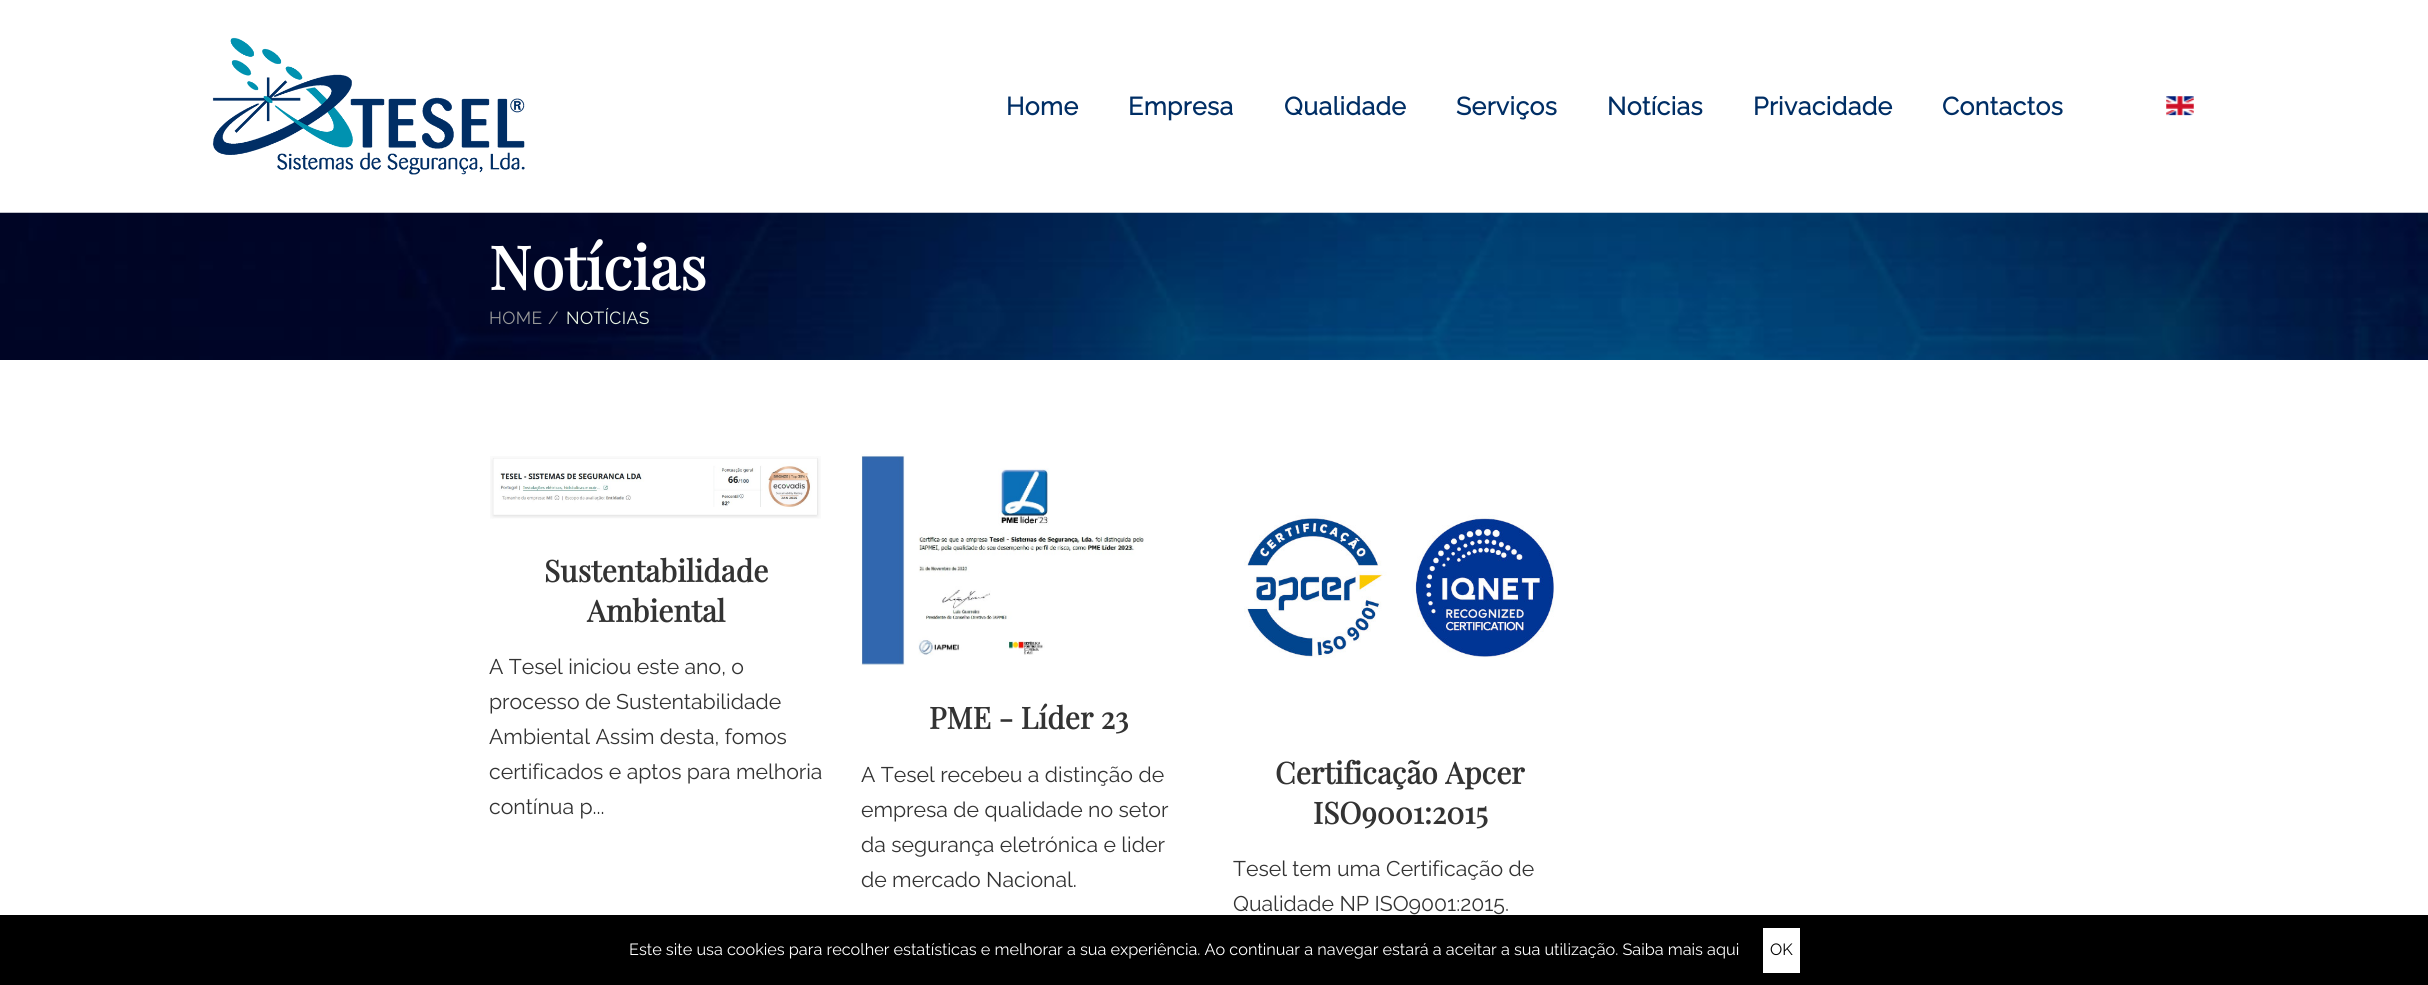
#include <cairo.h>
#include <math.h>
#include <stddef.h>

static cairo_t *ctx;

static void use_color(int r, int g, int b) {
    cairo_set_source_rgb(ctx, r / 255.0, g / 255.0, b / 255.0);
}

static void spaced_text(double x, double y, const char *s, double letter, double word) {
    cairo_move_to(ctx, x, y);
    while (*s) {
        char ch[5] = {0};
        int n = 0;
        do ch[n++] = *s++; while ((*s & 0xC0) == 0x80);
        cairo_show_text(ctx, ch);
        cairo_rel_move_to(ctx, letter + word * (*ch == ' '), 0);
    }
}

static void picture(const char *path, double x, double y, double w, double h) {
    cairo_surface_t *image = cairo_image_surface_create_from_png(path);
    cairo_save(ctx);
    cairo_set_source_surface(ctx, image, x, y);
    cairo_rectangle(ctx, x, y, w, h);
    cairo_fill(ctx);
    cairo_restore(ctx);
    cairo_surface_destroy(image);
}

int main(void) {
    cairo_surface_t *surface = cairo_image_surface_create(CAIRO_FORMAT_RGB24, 2428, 985);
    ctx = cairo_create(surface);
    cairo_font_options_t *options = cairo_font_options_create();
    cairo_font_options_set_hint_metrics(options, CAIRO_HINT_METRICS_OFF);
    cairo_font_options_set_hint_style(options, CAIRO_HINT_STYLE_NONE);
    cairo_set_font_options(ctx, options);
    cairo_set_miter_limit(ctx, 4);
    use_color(255, 255, 255);
    cairo_paint(ctx);
    picture("img1.png", 212, 37, 313, 138);
    cairo_select_font_face(ctx, "Raleway", CAIRO_FONT_SLANT_NORMAL, CAIRO_FONT_WEIGHT_BOLD);
    cairo_set_font_size(ctx, 25);
    use_color(0, 46, 101);
    spaced_text(1006, 115, "Home", 0.4, 0);
    spaced_text(1128, 115, "Empresa", 0.4, 0);
    spaced_text(1284, 115, "Qualidade", 0.4, 0);
    spaced_text(1456, 115, "Serviços", 0.4, 0);
    spaced_text(1607, 115, "Notícias", 0.4, 0);
    spaced_text(1753, 115, "Privacidade", 0.4, 0);
    spaced_text(1942, 115, "Contactos", 0.4, 0);
    picture("img2.png", 2166, 96, 28, 20);
    picture("img3.png", 0, 212, 2428, 148);
    cairo_select_font_face(ctx, "Playfair Display", CAIRO_FONT_SLANT_NORMAL, CAIRO_FONT_WEIGHT_BOLD);
    cairo_set_font_size(ctx, 60);
    use_color(255, 255, 255);
    cairo_move_to(ctx, 489, 290);
    cairo_show_text(ctx, "Notícias");
    cairo_select_font_face(ctx, "Raleway Thin", CAIRO_FONT_SLANT_NORMAL, CAIRO_FONT_WEIGHT_NORMAL);
    cairo_set_font_size(ctx, 17.5);
    use_color(153, 153, 153);
    spaced_text(489, 324, "HOME", 0.4, 0);
    spaced_text(548, 324, "/", 0.4, 0);
    use_color(233, 244, 226);
    spaced_text(566, 324, "NOTÍCIAS", 0.4, 0);
    picture("img4.png", 490, 456, 331, 63);
    cairo_select_font_face(ctx, "Playfair Display", CAIRO_FONT_SLANT_NORMAL, CAIRO_FONT_WEIGHT_BOLD);
    cairo_set_font_size(ctx, 30);
    use_color(51, 51, 51);
    cairo_move_to(ctx, 544, 582);
    cairo_show_text(ctx, "Sustentabilidade");
    cairo_move_to(ctx, 587, 622);
    cairo_show_text(ctx, "Ambiental");
    cairo_select_font_face(ctx, "Raleway Thin", CAIRO_FONT_SLANT_NORMAL, CAIRO_FONT_WEIGHT_NORMAL);
    cairo_set_font_size(ctx, 21.25);
    cairo_move_to(ctx, 489, 674);
    cairo_show_text(ctx, "A Tesel iniciou este ano, o");
    cairo_move_to(ctx, 489, 709);
    cairo_show_text(ctx, "processo de Sustentabilidade");
    cairo_move_to(ctx, 489, 744);
    cairo_show_text(ctx, "Ambiental Assim desta, fomos");
    cairo_move_to(ctx, 489, 779);
    cairo_show_text(ctx, "certificados e aptos para melhoria");
    cairo_move_to(ctx, 489, 814);
    cairo_show_text(ctx, "contínua p...");
    picture("img5.png", 861, 454, 283, 212);
    cairo_select_font_face(ctx, "Playfair Display", CAIRO_FONT_SLANT_NORMAL, CAIRO_FONT_WEIGHT_BOLD);
    cairo_set_font_size(ctx, 30);
    cairo_move_to(ctx, 929, 729);
    cairo_show_text(ctx, "PME - Líder 23");
    cairo_select_font_face(ctx, "Raleway Thin", CAIRO_FONT_SLANT_NORMAL, CAIRO_FONT_WEIGHT_NORMAL);
    cairo_set_font_size(ctx, 21.25);
    cairo_move_to(ctx, 861, 782);
    cairo_show_text(ctx, "A Tesel recebeu a distinção de");
    cairo_move_to(ctx, 861, 817);
    cairo_show_text(ctx, "empresa de qualidade no setor");
    cairo_move_to(ctx, 861, 852);
    cairo_show_text(ctx, "da segurança eletrónica e lider");
    cairo_move_to(ctx, 861, 887);
    cairo_show_text(ctx, "de mercado Nacional.");
    picture("img6.png", 1244, 515, 310, 143);
    cairo_select_font_face(ctx, "Playfair Display", CAIRO_FONT_SLANT_NORMAL, CAIRO_FONT_WEIGHT_BOLD);
    cairo_set_font_size(ctx, 30);
    cairo_move_to(ctx, 1275, 784);
    cairo_show_text(ctx, "Certificação Apcer");
    cairo_move_to(ctx, 1313, 824);
    cairo_show_text(ctx, "ISO9001:2015");
    cairo_select_font_face(ctx, "Raleway Thin", CAIRO_FONT_SLANT_NORMAL, CAIRO_FONT_WEIGHT_NORMAL);
    cairo_set_font_size(ctx, 21.25);
    cairo_move_to(ctx, 1233, 876);
    cairo_show_text(ctx, "Tesel tem uma Certificação de");
    cairo_move_to(ctx, 1233, 911);
    cairo_show_text(ctx, "Qualidade NP ISO9001:2015.");
    use_color(0, 0, 0);
    cairo_rectangle(ctx, 0, 915, 2428, 70);
    cairo_fill(ctx);
    cairo_set_font_size(ctx, 16.25);
    use_color(255, 255, 255);
    cairo_move_to(ctx, 629, 955);
    cairo_show_text(ctx, "Este site usa cookies para recolher estatísticas e melhorar a sua experiência. Ao continuar a navegar estará a aceitar a sua utilização. Saiba mais aqui");
    cairo_rectangle(ctx, 1763, 928, 37, 45);
    cairo_fill(ctx);
    use_color(0, 0, 0);
    cairo_move_to(ctx, 1770, 955);
    cairo_show_text(ctx, "OK");
    cairo_surface_write_to_png(surface, "result.png");
    cairo_font_options_destroy(options);
    cairo_destroy(ctx);
    cairo_surface_destroy(surface);
    return 0;
}
